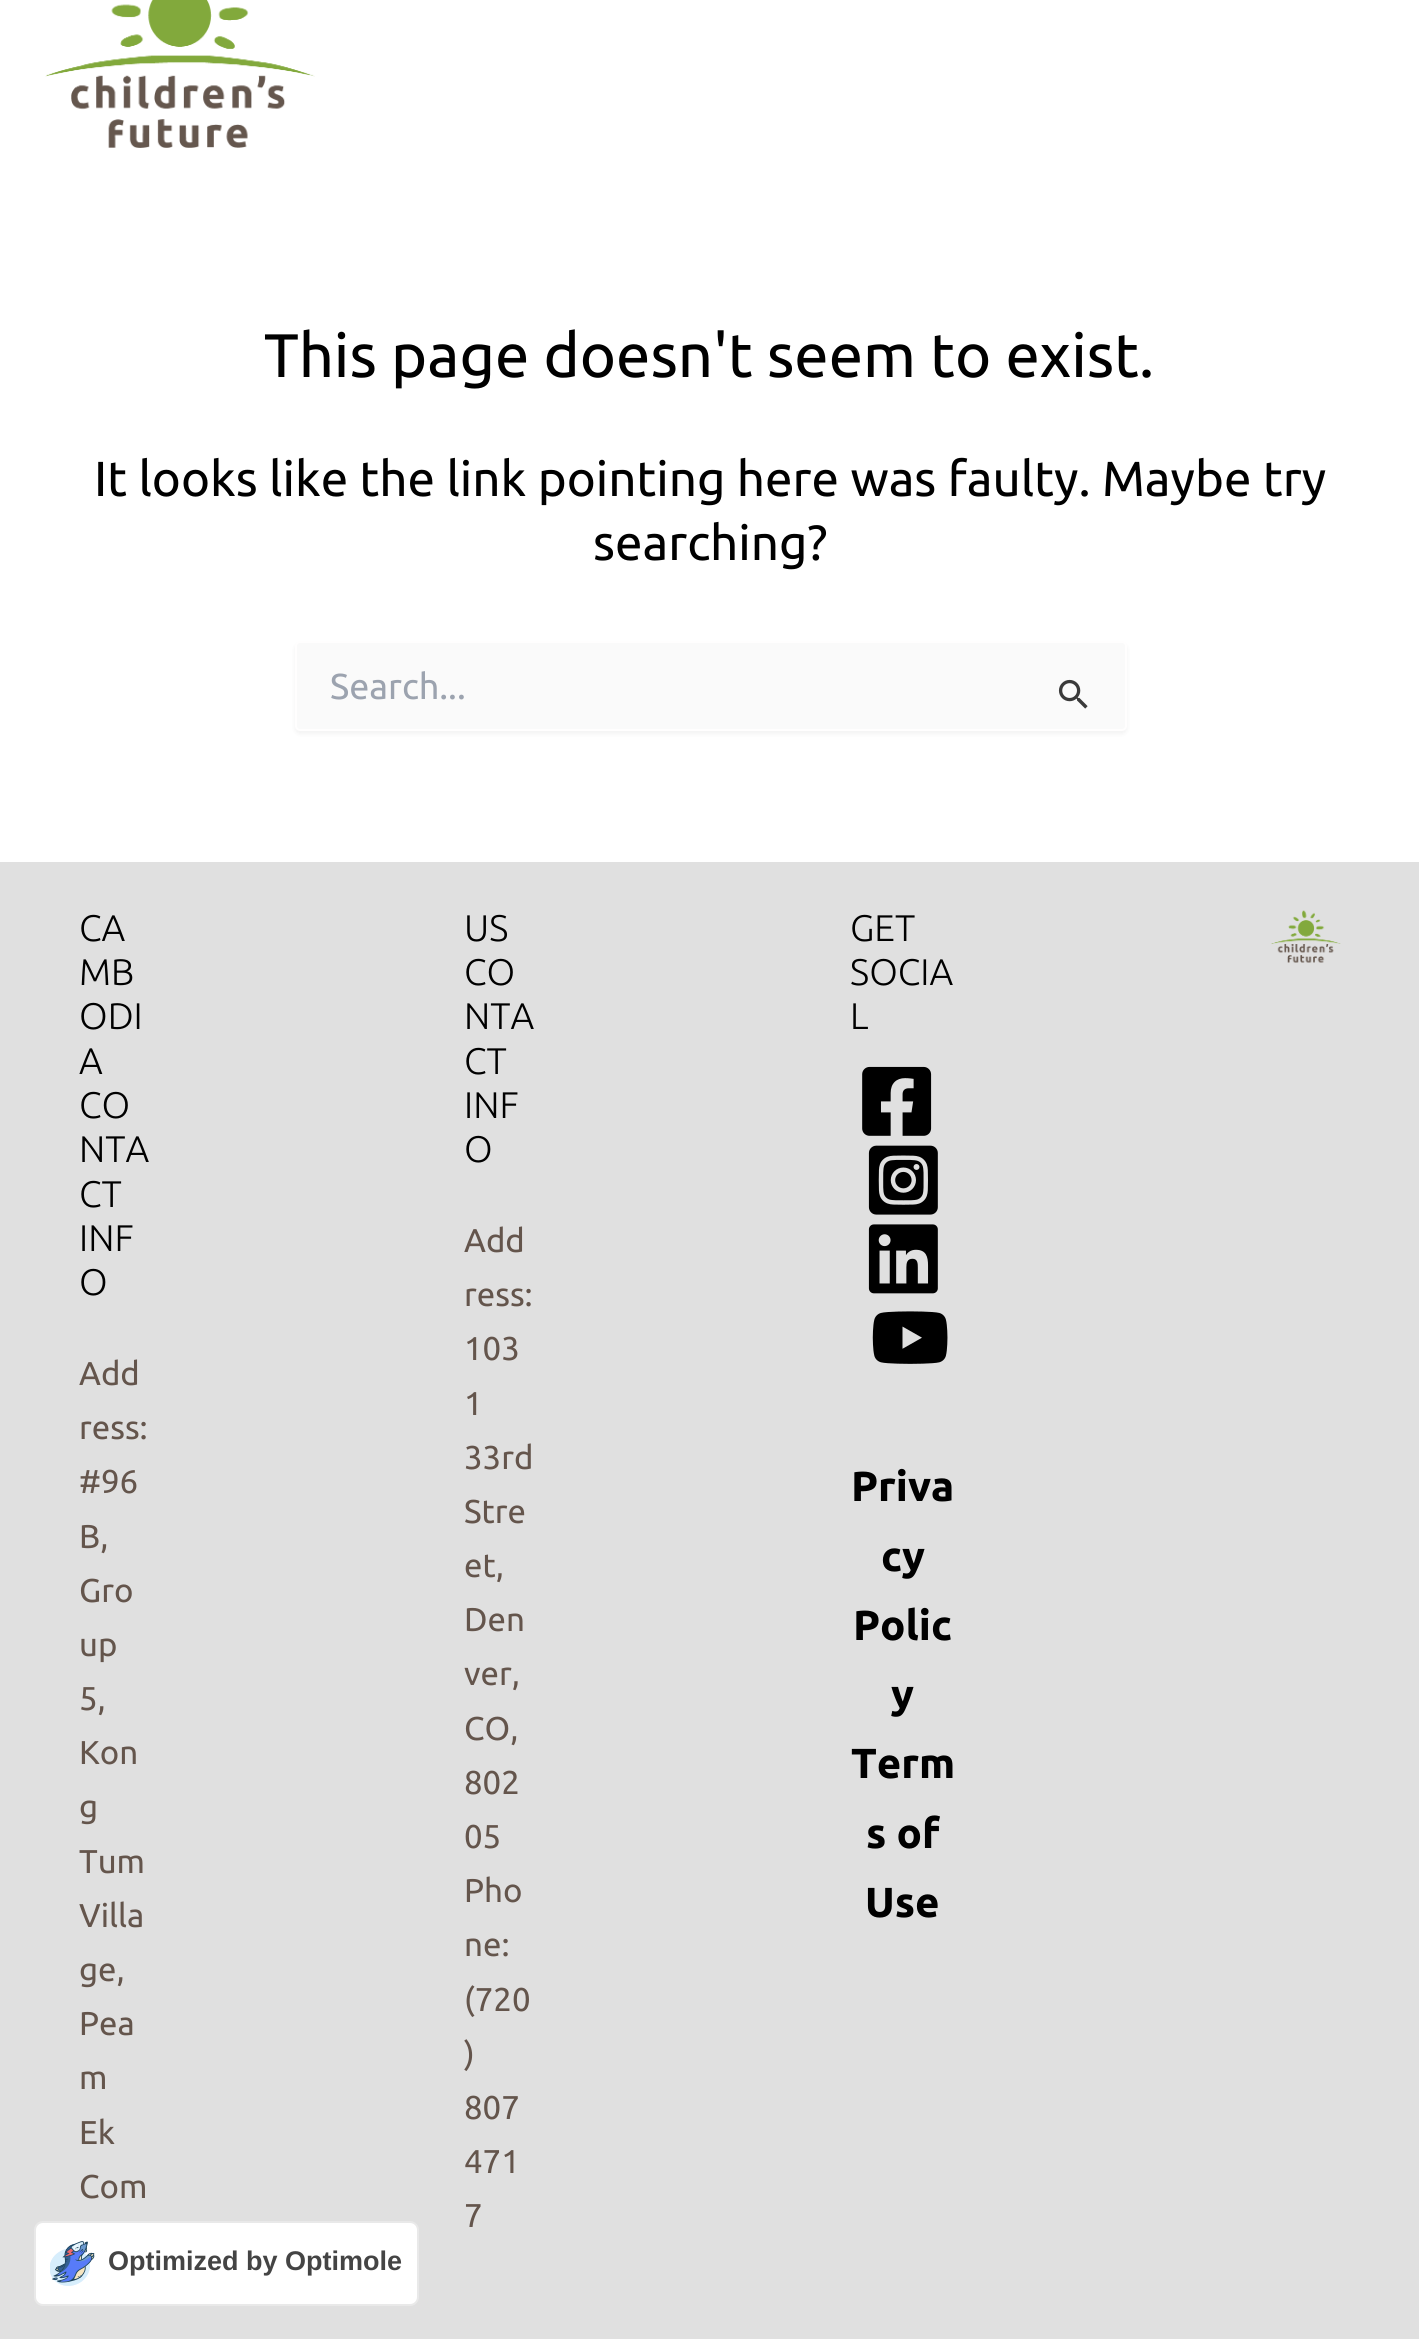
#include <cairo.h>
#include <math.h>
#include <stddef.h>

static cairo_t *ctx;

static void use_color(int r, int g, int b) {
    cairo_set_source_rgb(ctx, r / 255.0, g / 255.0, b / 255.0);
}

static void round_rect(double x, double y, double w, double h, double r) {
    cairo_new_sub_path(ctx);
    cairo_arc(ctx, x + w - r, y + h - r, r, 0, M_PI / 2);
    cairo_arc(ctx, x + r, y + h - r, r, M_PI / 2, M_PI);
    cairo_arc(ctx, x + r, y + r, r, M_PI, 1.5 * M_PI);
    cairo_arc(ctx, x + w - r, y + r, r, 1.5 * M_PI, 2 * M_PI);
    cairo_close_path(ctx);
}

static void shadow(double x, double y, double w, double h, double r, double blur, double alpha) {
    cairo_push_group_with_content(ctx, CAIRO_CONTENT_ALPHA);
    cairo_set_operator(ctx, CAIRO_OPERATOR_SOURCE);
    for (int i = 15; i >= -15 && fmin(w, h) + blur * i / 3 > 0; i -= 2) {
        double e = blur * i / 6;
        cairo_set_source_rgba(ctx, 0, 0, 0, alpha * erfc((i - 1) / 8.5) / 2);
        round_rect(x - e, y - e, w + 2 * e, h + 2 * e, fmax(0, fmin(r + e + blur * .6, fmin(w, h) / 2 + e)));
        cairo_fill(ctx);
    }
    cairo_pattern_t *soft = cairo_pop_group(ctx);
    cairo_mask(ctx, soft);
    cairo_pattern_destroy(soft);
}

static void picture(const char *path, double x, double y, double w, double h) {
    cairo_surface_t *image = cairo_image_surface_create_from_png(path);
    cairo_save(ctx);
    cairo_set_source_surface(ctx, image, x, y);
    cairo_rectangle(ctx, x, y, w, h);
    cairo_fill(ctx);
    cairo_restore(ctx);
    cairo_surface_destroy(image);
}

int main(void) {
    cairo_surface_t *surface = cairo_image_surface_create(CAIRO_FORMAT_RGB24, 1419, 2339);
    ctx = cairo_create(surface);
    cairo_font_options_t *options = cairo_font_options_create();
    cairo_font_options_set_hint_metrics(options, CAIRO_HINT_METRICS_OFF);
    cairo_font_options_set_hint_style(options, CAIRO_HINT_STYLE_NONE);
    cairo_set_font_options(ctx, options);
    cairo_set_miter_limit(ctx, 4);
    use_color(255, 255, 255);
    cairo_paint(ctx);
    picture("img1.png", 45, 0, 270, 148);
    cairo_select_font_face(ctx, "Ubuntu", CAIRO_FONT_SLANT_NORMAL, CAIRO_FONT_WEIGHT_NORMAL);
    cairo_set_font_size(ctx, 61.5);
    use_color(0, 0, 0);
    cairo_move_to(ctx, 264, 377);
    cairo_show_text(ctx, "This page doesn't seem to exist.");
    cairo_set_font_size(ctx, 49.25);
    cairo_move_to(ctx, 94, 496);
    cairo_show_text(ctx, "It looks like the link pointing here was faulty. Maybe try");
    cairo_move_to(ctx, 593, 560);
    cairo_show_text(ctx, "searching?");
    use_color(0, 0, 0);
    shadow(295, 644, 832, 90, 5, 2, 0.05);
    use_color(250, 250, 250);
    round_rect(296, 642, 830, 88, 4);
    cairo_fill_preserve(ctx);
    use_color(255, 254, 254);
    cairo_stroke(ctx);
    cairo_set_font_size(ctx, 36);
    use_color(156, 163, 175);
    cairo_move_to(ctx, 330, 699);
    cairo_show_text(ctx, "Search...");
    picture("img2.png", 1058, 679, 30, 30);
    use_color(224, 224, 224);
    cairo_rectangle(ctx, 0, 862, 1419, 1477);
    cairo_fill(ctx);
    cairo_select_font_face(ctx, "Ubuntu Light", CAIRO_FONT_SLANT_NORMAL, CAIRO_FONT_WEIGHT_NORMAL);
    cairo_set_font_size(ctx, 37);
    use_color(0, 0, 0);
    cairo_move_to(ctx, 79, 941);
    cairo_show_text(ctx, "CA");
    cairo_move_to(ctx, 79, 985);
    cairo_show_text(ctx, "MB");
    cairo_move_to(ctx, 79, 1029);
    cairo_show_text(ctx, "ODI");
    cairo_move_to(ctx, 79, 1074);
    cairo_show_text(ctx, "A");
    cairo_move_to(ctx, 79, 1118);
    cairo_show_text(ctx, "CO");
    cairo_move_to(ctx, 79, 1162);
    cairo_show_text(ctx, "NTA");
    cairo_move_to(ctx, 79, 1207);
    cairo_show_text(ctx, "CT");
    cairo_move_to(ctx, 79, 1251);
    cairo_show_text(ctx, "INF");
    cairo_move_to(ctx, 79, 1295);
    cairo_show_text(ctx, "O");
    cairo_select_font_face(ctx, "Ubuntu", CAIRO_FONT_SLANT_NORMAL, CAIRO_FONT_WEIGHT_NORMAL);
    cairo_set_font_size(ctx, 33);
    use_color(100, 85, 76);
    cairo_move_to(ctx, 79, 1385);
    cairo_show_text(ctx, "Add");
    cairo_move_to(ctx, 79, 1439);
    cairo_show_text(ctx, "ress:");
    cairo_move_to(ctx, 79, 1493);
    cairo_show_text(ctx, "#96");
    cairo_move_to(ctx, 79, 1548);
    cairo_show_text(ctx, "B,");
    cairo_move_to(ctx, 79, 1602);
    cairo_show_text(ctx, "Gro");
    cairo_move_to(ctx, 79, 1656);
    cairo_show_text(ctx, "up");
    cairo_move_to(ctx, 79, 1710);
    cairo_show_text(ctx, "5,");
    cairo_move_to(ctx, 79, 1764);
    cairo_show_text(ctx, "Kon");
    cairo_move_to(ctx, 79, 1818);
    cairo_show_text(ctx, "g");
    cairo_move_to(ctx, 79, 1873);
    cairo_show_text(ctx, "Tum");
    cairo_move_to(ctx, 79, 1927);
    cairo_show_text(ctx, "Villa");
    cairo_move_to(ctx, 79, 1981);
    cairo_show_text(ctx, "ge,");
    cairo_move_to(ctx, 79, 2035);
    cairo_show_text(ctx, "Pea");
    cairo_move_to(ctx, 79, 2089);
    cairo_show_text(ctx, "m");
    cairo_move_to(ctx, 79, 2144);
    cairo_show_text(ctx, "Ek");
    cairo_move_to(ctx, 79, 2198);
    cairo_show_text(ctx, "Com");
    cairo_select_font_face(ctx, "Ubuntu Light", CAIRO_FONT_SLANT_NORMAL, CAIRO_FONT_WEIGHT_NORMAL);
    cairo_set_font_size(ctx, 37);
    use_color(0, 0, 0);
    cairo_move_to(ctx, 464, 941);
    cairo_show_text(ctx, "US");
    cairo_move_to(ctx, 464, 985);
    cairo_show_text(ctx, "CO");
    cairo_move_to(ctx, 464, 1029);
    cairo_show_text(ctx, "NTA");
    cairo_move_to(ctx, 464, 1074);
    cairo_show_text(ctx, "CT");
    cairo_move_to(ctx, 464, 1118);
    cairo_show_text(ctx, "INF");
    cairo_move_to(ctx, 464, 1162);
    cairo_show_text(ctx, "O");
    cairo_select_font_face(ctx, "Ubuntu", CAIRO_FONT_SLANT_NORMAL, CAIRO_FONT_WEIGHT_NORMAL);
    cairo_set_font_size(ctx, 33);
    use_color(100, 85, 76);
    cairo_move_to(ctx, 464, 1252);
    cairo_show_text(ctx, "Add");
    cairo_move_to(ctx, 464, 1306);
    cairo_show_text(ctx, "ress:");
    cairo_move_to(ctx, 464, 1360);
    cairo_show_text(ctx, "103");
    cairo_move_to(ctx, 464, 1415);
    cairo_show_text(ctx, "1");
    cairo_move_to(ctx, 464, 1469);
    cairo_show_text(ctx, "33rd");
    cairo_move_to(ctx, 464, 1523);
    cairo_show_text(ctx, "Stre");
    cairo_move_to(ctx, 464, 1577);
    cairo_show_text(ctx, "et,");
    cairo_move_to(ctx, 464, 1631);
    cairo_show_text(ctx, "Den");
    cairo_move_to(ctx, 464, 1685);
    cairo_show_text(ctx, "ver,");
    cairo_move_to(ctx, 464, 1740);
    cairo_show_text(ctx, "CO,");
    cairo_move_to(ctx, 464, 1794);
    cairo_show_text(ctx, "802");
    cairo_move_to(ctx, 464, 1848);
    cairo_show_text(ctx, "05");
    cairo_move_to(ctx, 464, 1902);
    cairo_show_text(ctx, "Pho");
    cairo_move_to(ctx, 464, 1956);
    cairo_show_text(ctx, "ne:");
    cairo_move_to(ctx, 464, 2011);
    cairo_show_text(ctx, "(720");
    cairo_move_to(ctx, 464, 2065);
    cairo_show_text(ctx, ")");
    cairo_move_to(ctx, 464, 2119);
    cairo_show_text(ctx, "807");
    cairo_move_to(ctx, 464, 2173);
    cairo_show_text(ctx, "471");
    cairo_move_to(ctx, 464, 2227);
    cairo_show_text(ctx, "7");
    cairo_select_font_face(ctx, "Ubuntu Light", CAIRO_FONT_SLANT_NORMAL, CAIRO_FONT_WEIGHT_NORMAL);
    cairo_set_font_size(ctx, 37);
    use_color(0, 0, 0);
    cairo_move_to(ctx, 850, 941);
    cairo_show_text(ctx, "GET");
    cairo_move_to(ctx, 850, 985);
    cairo_show_text(ctx, "SOCIA");
    cairo_move_to(ctx, 850, 1029);
    cairo_show_text(ctx, "L");
    picture("img3.png", 862, 1066, 70, 70);
    picture("img4.png", 868, 1145, 70, 70);
    picture("img5.png", 868, 1224, 70, 70);
    picture("img6.png", 872, 1311, 76, 53);
    cairo_select_font_face(ctx, "Ubuntu", CAIRO_FONT_SLANT_NORMAL, CAIRO_FONT_WEIGHT_BOLD);
    cairo_set_font_size(ctx, 42);
    cairo_move_to(ctx, 851, 1501);
    cairo_show_text(ctx, "Priva");
    cairo_move_to(ctx, 881, 1571);
    cairo_show_text(ctx, "cy");
    cairo_move_to(ctx, 853, 1640);
    cairo_show_text(ctx, "Polic");
    cairo_move_to(ctx, 891, 1709);
    cairo_show_text(ctx, "y");
    cairo_move_to(ctx, 851, 1778);
    cairo_show_text(ctx, "Term");
    cairo_move_to(ctx, 866, 1848);
    cairo_show_text(ctx, "s of");
    cairo_move_to(ctx, 865, 1917);
    cairo_show_text(ctx, "Use");
    picture("img7.png", 1271, 910, 70, 53);
    use_color(255, 255, 255);
    round_rect(35, 2222, 383, 83, 8);
    cairo_fill_preserve(ctx);
    use_color(233, 233, 233);
    cairo_stroke(ctx);
    picture("img8.png", 50, 2241, 45, 45);
    cairo_select_font_face(ctx, "Liberation Sans", CAIRO_FONT_SLANT_NORMAL, CAIRO_FONT_WEIGHT_BOLD);
    cairo_set_font_size(ctx, 27);
    use_color(68, 68, 68);
    cairo_move_to(ctx, 108, 2270);
    cairo_show_text(ctx, "Optimized by Optimole");
    cairo_surface_write_to_png(surface, "result.png");
    cairo_font_options_destroy(options);
    cairo_destroy(ctx);
    cairo_surface_destroy(surface);
    return 0;
}
